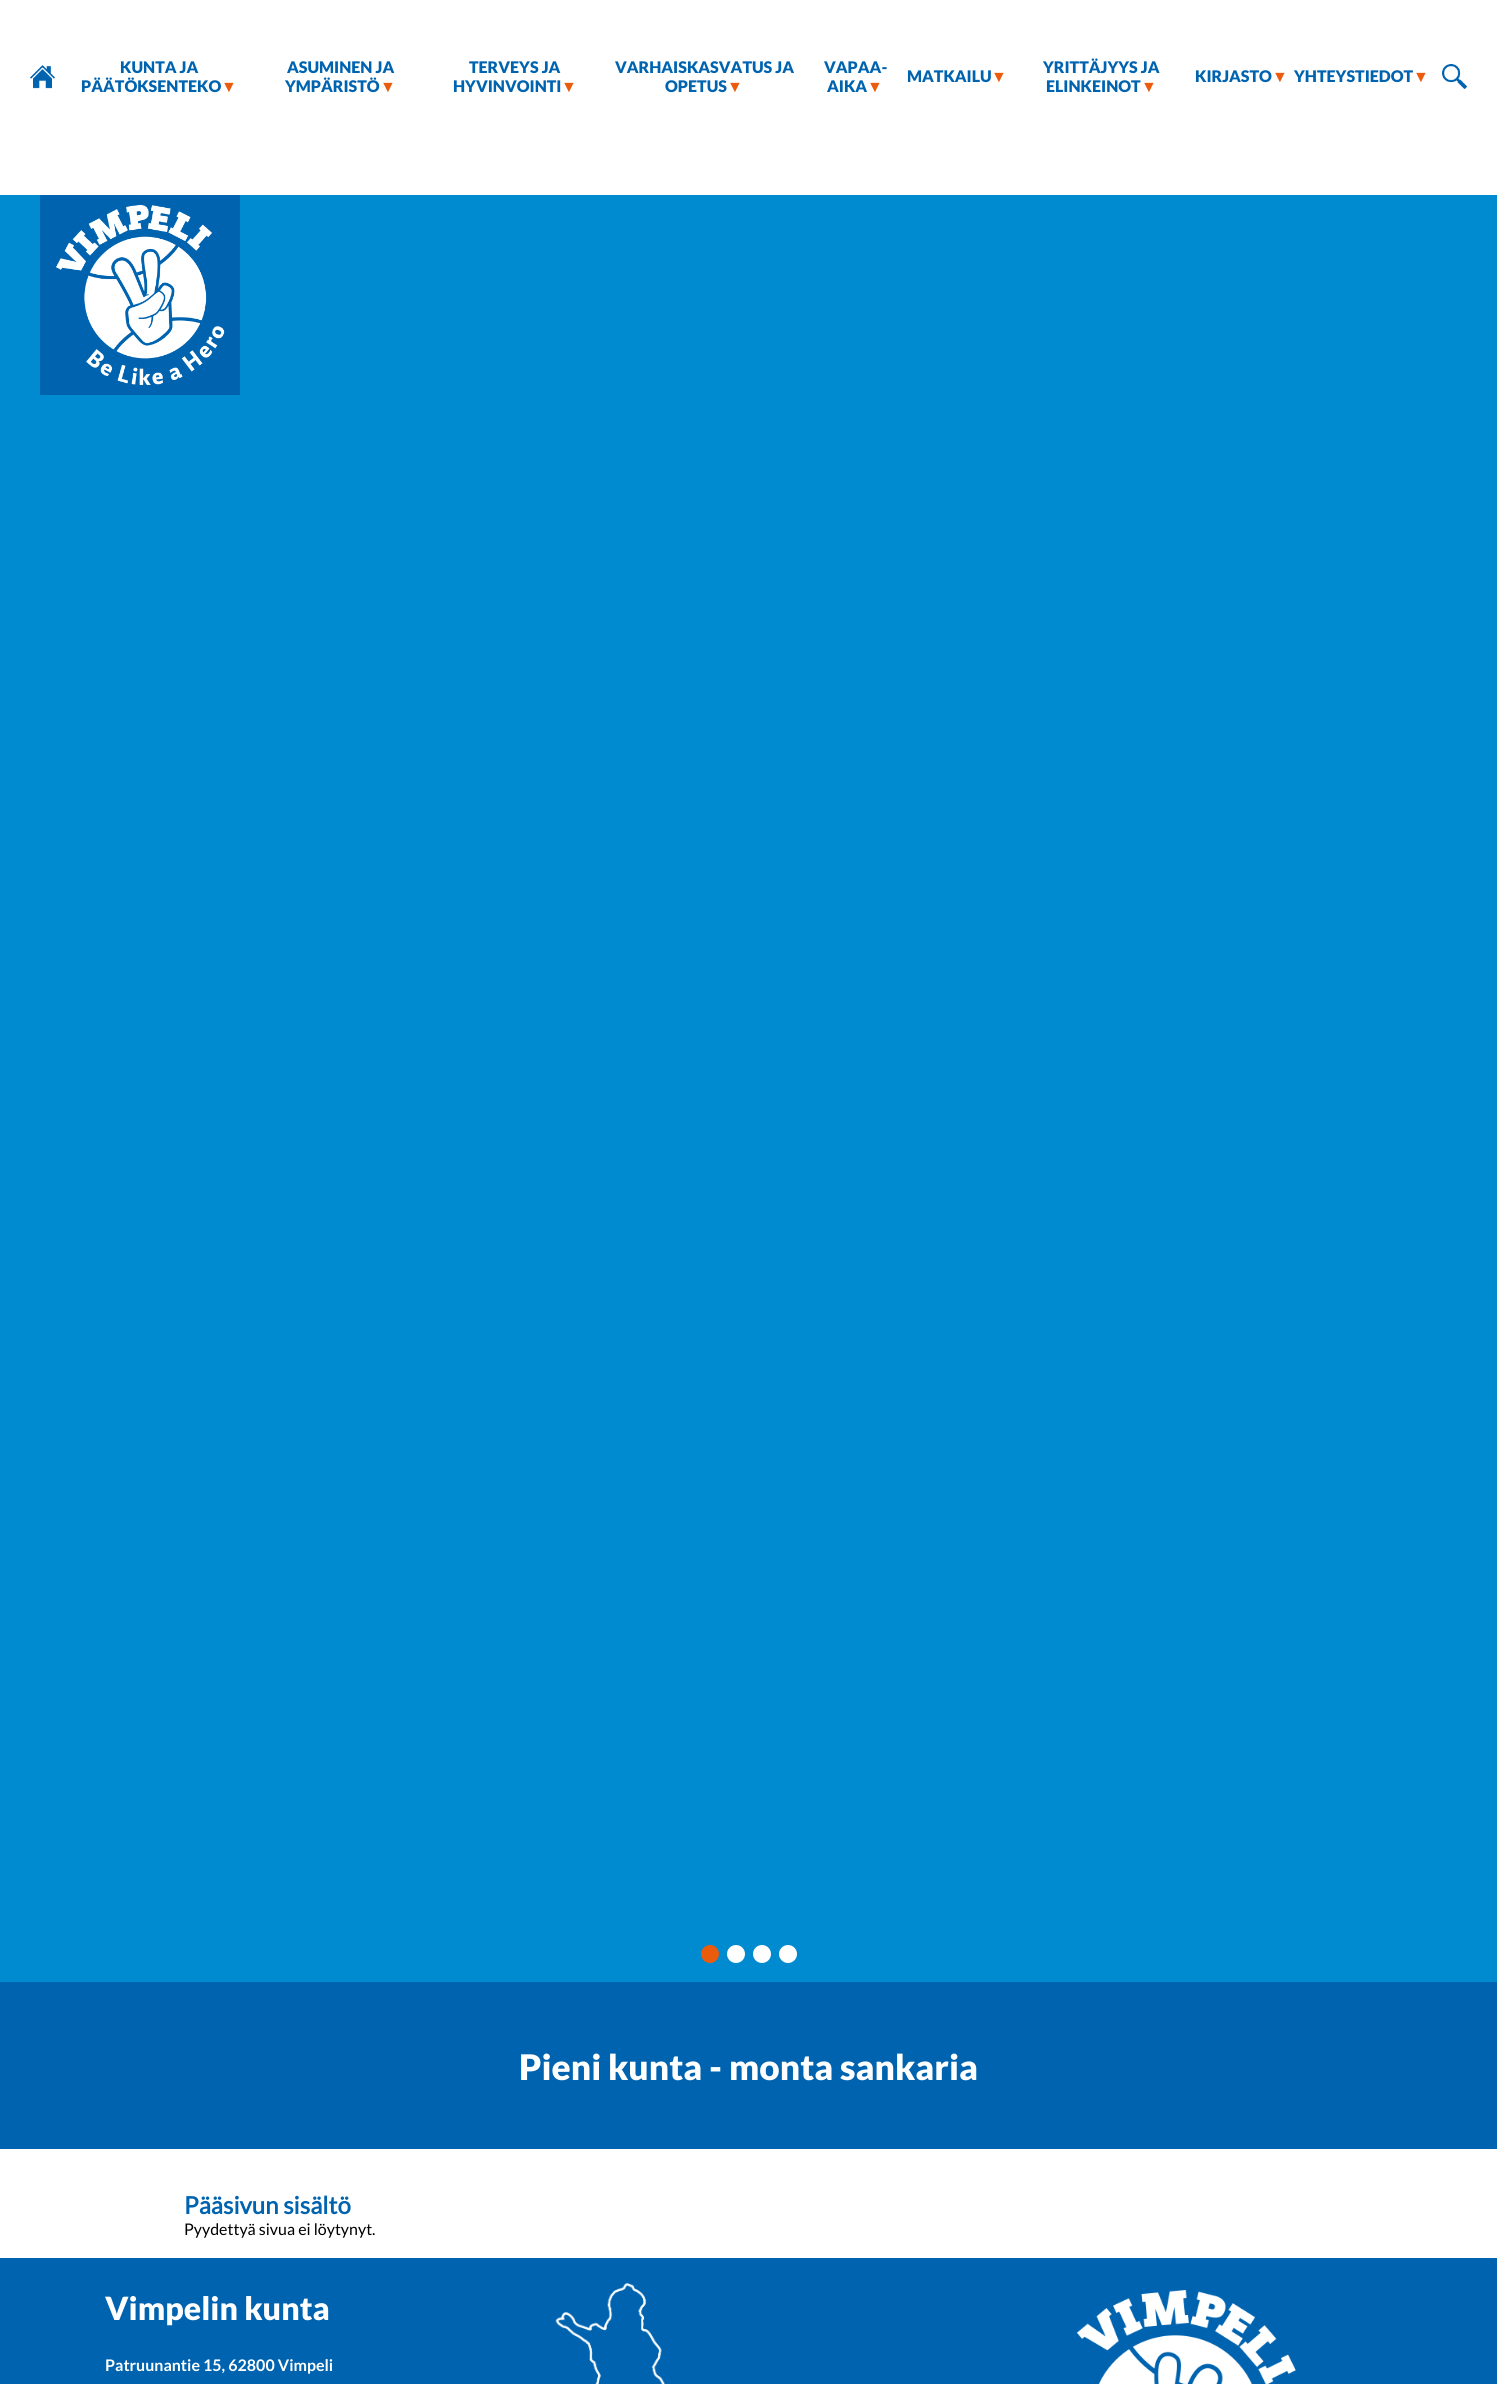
#include <cairo.h>
#include <math.h>
#include <stddef.h>

static cairo_t *ctx;

static void use_color(int r, int g, int b) {
    cairo_set_source_rgb(ctx, r / 255.0, g / 255.0, b / 255.0);
}

static void picture(const char *path, double x, double y, double w, double h) {
    cairo_surface_t *image = cairo_image_surface_create_from_png(path);
    cairo_save(ctx);
    cairo_set_source_surface(ctx, image, x, y);
    cairo_rectangle(ctx, x, y, w, h);
    cairo_fill(ctx);
    cairo_restore(ctx);
    cairo_surface_destroy(image);
}

int main(void) {
    cairo_surface_t *surface = cairo_image_surface_create(CAIRO_FORMAT_RGB24, 1497, 2384);
    ctx = cairo_create(surface);
    cairo_font_options_t *options = cairo_font_options_create();
    cairo_font_options_set_hint_metrics(options, CAIRO_HINT_METRICS_OFF);
    cairo_font_options_set_hint_style(options, CAIRO_HINT_STYLE_NONE);
    cairo_set_font_options(ctx, options);
    cairo_set_miter_limit(ctx, 4);
    use_color(255, 255, 255);
    cairo_paint(ctx);
    picture("img1.png", 30, 65, 25, 24);
    cairo_select_font_face(ctx, "Lato Black", CAIRO_FONT_SLANT_NORMAL, CAIRO_FONT_WEIGHT_NORMAL);
    cairo_set_font_size(ctx, 16);
    use_color(0, 99, 175);
    cairo_move_to(ctx, 120, 73);
    cairo_show_text(ctx, "KUNTA JA");
    cairo_move_to(ctx, 81, 92);
    cairo_show_text(ctx, "PÄÄTÖKSENTEKO");
    cairo_select_font_face(ctx, "Liberation Serif", CAIRO_FONT_SLANT_NORMAL, CAIRO_FONT_WEIGHT_NORMAL);
    use_color(234, 91, 12);
    cairo_move_to(ctx, 221, 92);
    cairo_show_text(ctx, "▼");
    cairo_select_font_face(ctx, "Lato Black", CAIRO_FONT_SLANT_NORMAL, CAIRO_FONT_WEIGHT_NORMAL);
    use_color(0, 99, 175);
    cairo_move_to(ctx, 287, 73);
    cairo_show_text(ctx, "ASUMINEN JA");
    cairo_move_to(ctx, 285, 92);
    cairo_show_text(ctx, "YMPÄRISTÖ");
    cairo_select_font_face(ctx, "Liberation Serif", CAIRO_FONT_SLANT_NORMAL, CAIRO_FONT_WEIGHT_NORMAL);
    use_color(234, 91, 12);
    cairo_move_to(ctx, 380, 92);
    cairo_show_text(ctx, "▼");
    cairo_select_font_face(ctx, "Lato Black", CAIRO_FONT_SLANT_NORMAL, CAIRO_FONT_WEIGHT_NORMAL);
    use_color(0, 99, 175);
    cairo_move_to(ctx, 469, 73);
    cairo_show_text(ctx, "TERVEYS JA");
    cairo_move_to(ctx, 453, 92);
    cairo_show_text(ctx, "HYVINVOINTI");
    cairo_select_font_face(ctx, "Liberation Serif", CAIRO_FONT_SLANT_NORMAL, CAIRO_FONT_WEIGHT_NORMAL);
    use_color(234, 91, 12);
    cairo_move_to(ctx, 561, 92);
    cairo_show_text(ctx, "▼");
    cairo_select_font_face(ctx, "Lato Black", CAIRO_FONT_SLANT_NORMAL, CAIRO_FONT_WEIGHT_NORMAL);
    use_color(0, 99, 175);
    cairo_move_to(ctx, 615, 73);
    cairo_show_text(ctx, "VARHAISKASVATUS JA");
    cairo_move_to(ctx, 665, 92);
    cairo_show_text(ctx, "OPETUS");
    cairo_select_font_face(ctx, "Liberation Serif", CAIRO_FONT_SLANT_NORMAL, CAIRO_FONT_WEIGHT_NORMAL);
    use_color(234, 91, 12);
    cairo_move_to(ctx, 727, 92);
    cairo_show_text(ctx, "▼");
    cairo_select_font_face(ctx, "Lato Black", CAIRO_FONT_SLANT_NORMAL, CAIRO_FONT_WEIGHT_NORMAL);
    use_color(0, 99, 175);
    cairo_move_to(ctx, 824, 73);
    cairo_show_text(ctx, "VAPAA-");
    cairo_move_to(ctx, 827, 92);
    cairo_show_text(ctx, "AIKA");
    cairo_select_font_face(ctx, "Liberation Serif", CAIRO_FONT_SLANT_NORMAL, CAIRO_FONT_WEIGHT_NORMAL);
    use_color(234, 91, 12);
    cairo_move_to(ctx, 867, 92);
    cairo_show_text(ctx, "▼");
    cairo_select_font_face(ctx, "Lato Black", CAIRO_FONT_SLANT_NORMAL, CAIRO_FONT_WEIGHT_NORMAL);
    use_color(0, 99, 175);
    cairo_move_to(ctx, 907, 82);
    cairo_show_text(ctx, "MATKAILU");
    cairo_select_font_face(ctx, "Liberation Serif", CAIRO_FONT_SLANT_NORMAL, CAIRO_FONT_WEIGHT_NORMAL);
    use_color(234, 91, 12);
    cairo_move_to(ctx, 991, 82);
    cairo_show_text(ctx, "▼");
    cairo_select_font_face(ctx, "Lato Black", CAIRO_FONT_SLANT_NORMAL, CAIRO_FONT_WEIGHT_NORMAL);
    use_color(0, 99, 175);
    cairo_move_to(ctx, 1043, 73);
    cairo_show_text(ctx, "YRITTÄJYYS JA");
    cairo_move_to(ctx, 1046, 92);
    cairo_show_text(ctx, "ELINKEINOT");
    cairo_select_font_face(ctx, "Liberation Serif", CAIRO_FONT_SLANT_NORMAL, CAIRO_FONT_WEIGHT_NORMAL);
    use_color(234, 91, 12);
    cairo_move_to(ctx, 1141, 92);
    cairo_show_text(ctx, "▼");
    cairo_select_font_face(ctx, "Lato Black", CAIRO_FONT_SLANT_NORMAL, CAIRO_FONT_WEIGHT_NORMAL);
    use_color(0, 99, 175);
    cairo_move_to(ctx, 1195, 82);
    cairo_show_text(ctx, "KIRJASTO");
    cairo_select_font_face(ctx, "Liberation Serif", CAIRO_FONT_SLANT_NORMAL, CAIRO_FONT_WEIGHT_NORMAL);
    use_color(234, 91, 12);
    cairo_move_to(ctx, 1272, 82);
    cairo_show_text(ctx, "▼");
    cairo_select_font_face(ctx, "Lato Black", CAIRO_FONT_SLANT_NORMAL, CAIRO_FONT_WEIGHT_NORMAL);
    use_color(0, 99, 175);
    cairo_move_to(ctx, 1294, 82);
    cairo_show_text(ctx, "YHTEYSTIEDOT");
    cairo_select_font_face(ctx, "Liberation Serif", CAIRO_FONT_SLANT_NORMAL, CAIRO_FONT_WEIGHT_NORMAL);
    use_color(234, 91, 12);
    cairo_move_to(ctx, 1413, 82);
    cairo_show_text(ctx, "▼");
    picture("img2.png", 1442, 64, 25, 25);
    use_color(0, 139, 208);
    cairo_rectangle(ctx, 0, 195, 1497, 1787);
    cairo_fill(ctx);
    use_color(234, 91, 12);
    cairo_arc(ctx, 710, 1954, 9, 0, 2 * M_PI);
    cairo_fill(ctx);
    use_color(255, 255, 255);
    cairo_arc(ctx, 736, 1954, 9, 0, 2 * M_PI);
    cairo_fill(ctx);
    cairo_arc(ctx, 762, 1954, 9, 0, 2 * M_PI);
    cairo_fill(ctx);
    cairo_arc(ctx, 788, 1954, 9, 0, 2 * M_PI);
    cairo_fill(ctx);
    use_color(0, 99, 175);
    cairo_rectangle(ctx, 40, 195, 200, 200);
    cairo_fill(ctx);
    picture("img3.png", 56, 205, 169, 180);
    cairo_rectangle(ctx, 0, 1982, 1497, 167);
    cairo_fill(ctx);
    cairo_select_font_face(ctx, "Lato Black", CAIRO_FONT_SLANT_NORMAL, CAIRO_FONT_WEIGHT_NORMAL);
    cairo_set_font_size(ctx, 35.25);
    use_color(255, 255, 255);
    cairo_move_to(ctx, 519, 2080);
    cairo_show_text(ctx, "Pieni kunta - monta sankaria");
    cairo_select_font_face(ctx, "Lato", CAIRO_FONT_SLANT_NORMAL, CAIRO_FONT_WEIGHT_BOLD);
    cairo_set_font_size(ctx, 24);
    use_color(0, 99, 175);
    cairo_move_to(ctx, 184, 2214);
    cairo_show_text(ctx, "Pääsivun sisältö");
    cairo_select_font_face(ctx, "Lato", CAIRO_FONT_SLANT_NORMAL, CAIRO_FONT_WEIGHT_NORMAL);
    cairo_set_font_size(ctx, 16);
    use_color(0, 0, 0);
    cairo_move_to(ctx, 184, 2235);
    cairo_show_text(ctx, "Pyydettyä sivua ei löytynyt.");
    use_color(0, 99, 175);
    cairo_rectangle(ctx, 0, 2258, 1497, 126);
    cairo_fill(ctx);
    cairo_select_font_face(ctx, "Lato Black", CAIRO_FONT_SLANT_NORMAL, CAIRO_FONT_WEIGHT_NORMAL);
    cairo_set_font_size(ctx, 32);
    use_color(255, 255, 255);
    cairo_move_to(ctx, 105, 2320);
    cairo_show_text(ctx, "Vimpelin kunta");
    cairo_select_font_face(ctx, "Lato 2", CAIRO_FONT_SLANT_NORMAL, CAIRO_FONT_WEIGHT_BOLD);
    cairo_set_font_size(ctx, 16);
    cairo_move_to(ctx, 105, 2371);
    cairo_show_text(ctx, "Patruunantie 15, 62800 Vimpeli");
    picture("img4.png", 555, 2283, 110, 101);
    picture("img5.png", 1077, 2290, 219, 94);
    cairo_surface_write_to_png(surface, "result.png");
    cairo_font_options_destroy(options);
    cairo_destroy(ctx);
    cairo_surface_destroy(surface);
    return 0;
}
